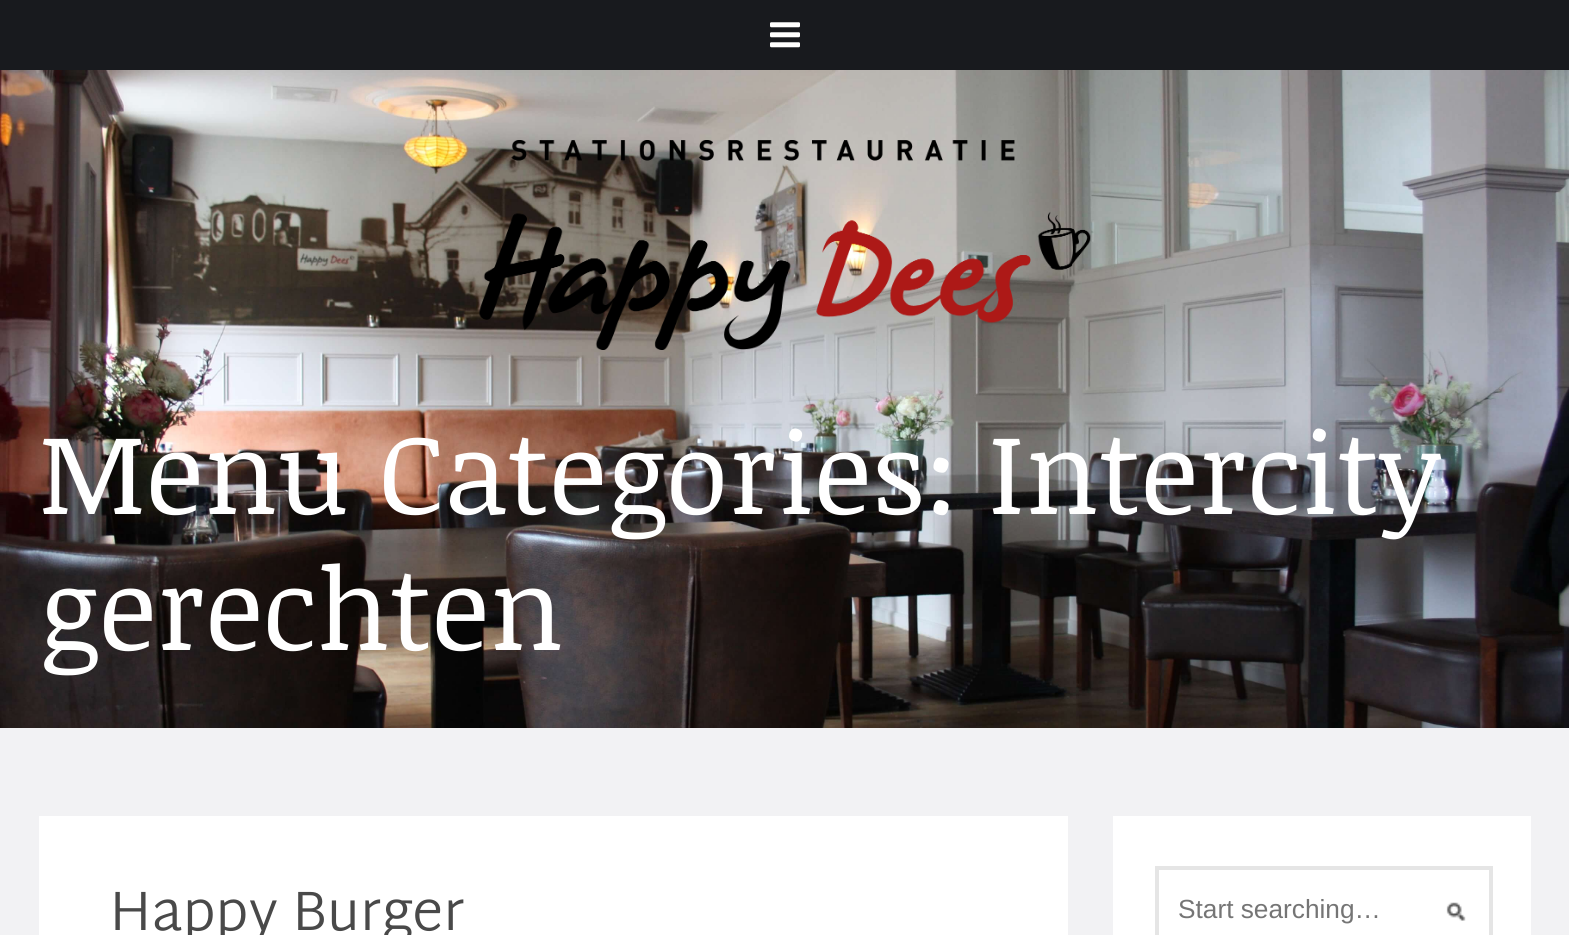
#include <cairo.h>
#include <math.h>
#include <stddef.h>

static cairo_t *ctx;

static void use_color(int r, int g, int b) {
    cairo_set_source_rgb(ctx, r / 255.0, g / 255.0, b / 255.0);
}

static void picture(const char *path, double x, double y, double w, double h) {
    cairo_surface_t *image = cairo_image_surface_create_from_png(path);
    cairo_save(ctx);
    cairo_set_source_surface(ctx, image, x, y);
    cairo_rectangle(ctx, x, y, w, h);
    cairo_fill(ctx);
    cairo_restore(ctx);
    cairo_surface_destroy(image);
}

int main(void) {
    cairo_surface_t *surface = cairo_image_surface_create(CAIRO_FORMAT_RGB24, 1569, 935);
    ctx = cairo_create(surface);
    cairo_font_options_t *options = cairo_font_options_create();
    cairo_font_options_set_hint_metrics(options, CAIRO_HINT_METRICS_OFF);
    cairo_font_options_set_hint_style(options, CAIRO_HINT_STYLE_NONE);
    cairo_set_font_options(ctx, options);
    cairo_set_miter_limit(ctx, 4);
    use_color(242, 242, 244);
    cairo_paint(ctx);
    use_color(24, 26, 30);
    cairo_rectangle(ctx, 0, 0, 1569, 70);
    cairo_fill(ctx);
    picture("img1.png", 770, 22, 30, 26);
    picture("img2.png", 0, 70, 1569, 658);
    picture("img3.png", 479, 140, 612, 210);
    cairo_select_font_face(ctx, "Noticia Text", CAIRO_FONT_SLANT_NORMAL, CAIRO_FONT_WEIGHT_NORMAL);
    cairo_set_font_size(ctx, 113.75);
    use_color(255, 255, 255);
    cairo_move_to(ctx, 39, 514);
    cairo_show_text(ctx, "Menu Categories: Intercity");
    cairo_move_to(ctx, 39, 650);
    cairo_show_text(ctx, "gerechten");
    cairo_rectangle(ctx, 39, 816, 1029, 119);
    cairo_fill(ctx);
    cairo_select_font_face(ctx, "Martel Sans Light", CAIRO_FONT_SLANT_NORMAL, CAIRO_FONT_WEIGHT_NORMAL);
    cairo_set_font_size(ctx, 56);
    use_color(73, 73, 73);
    cairo_move_to(ctx, 109, 930);
    cairo_show_text(ctx, "Happy Burger");
    use_color(255, 255, 255);
    cairo_rectangle(ctx, 1113, 816, 418, 119);
    cairo_fill(ctx);
    picture("img4.png", 1446, 902, 20, 19);
    cairo_rectangle(ctx, 1157, 868, 334, 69);
    use_color(229, 229, 229);
    cairo_set_line_width(ctx, 4);
    cairo_stroke(ctx);
    cairo_select_font_face(ctx, "Liberation Sans", CAIRO_FONT_SLANT_NORMAL, CAIRO_FONT_WEIGHT_NORMAL);
    cairo_set_font_size(ctx, 26.25);
    use_color(117, 117, 117);
    cairo_move_to(ctx, 1178, 918);
    cairo_show_text(ctx, "Start searching…");
    cairo_surface_write_to_png(surface, "result.png");
    cairo_font_options_destroy(options);
    cairo_destroy(ctx);
    cairo_surface_destroy(surface);
    return 0;
}
